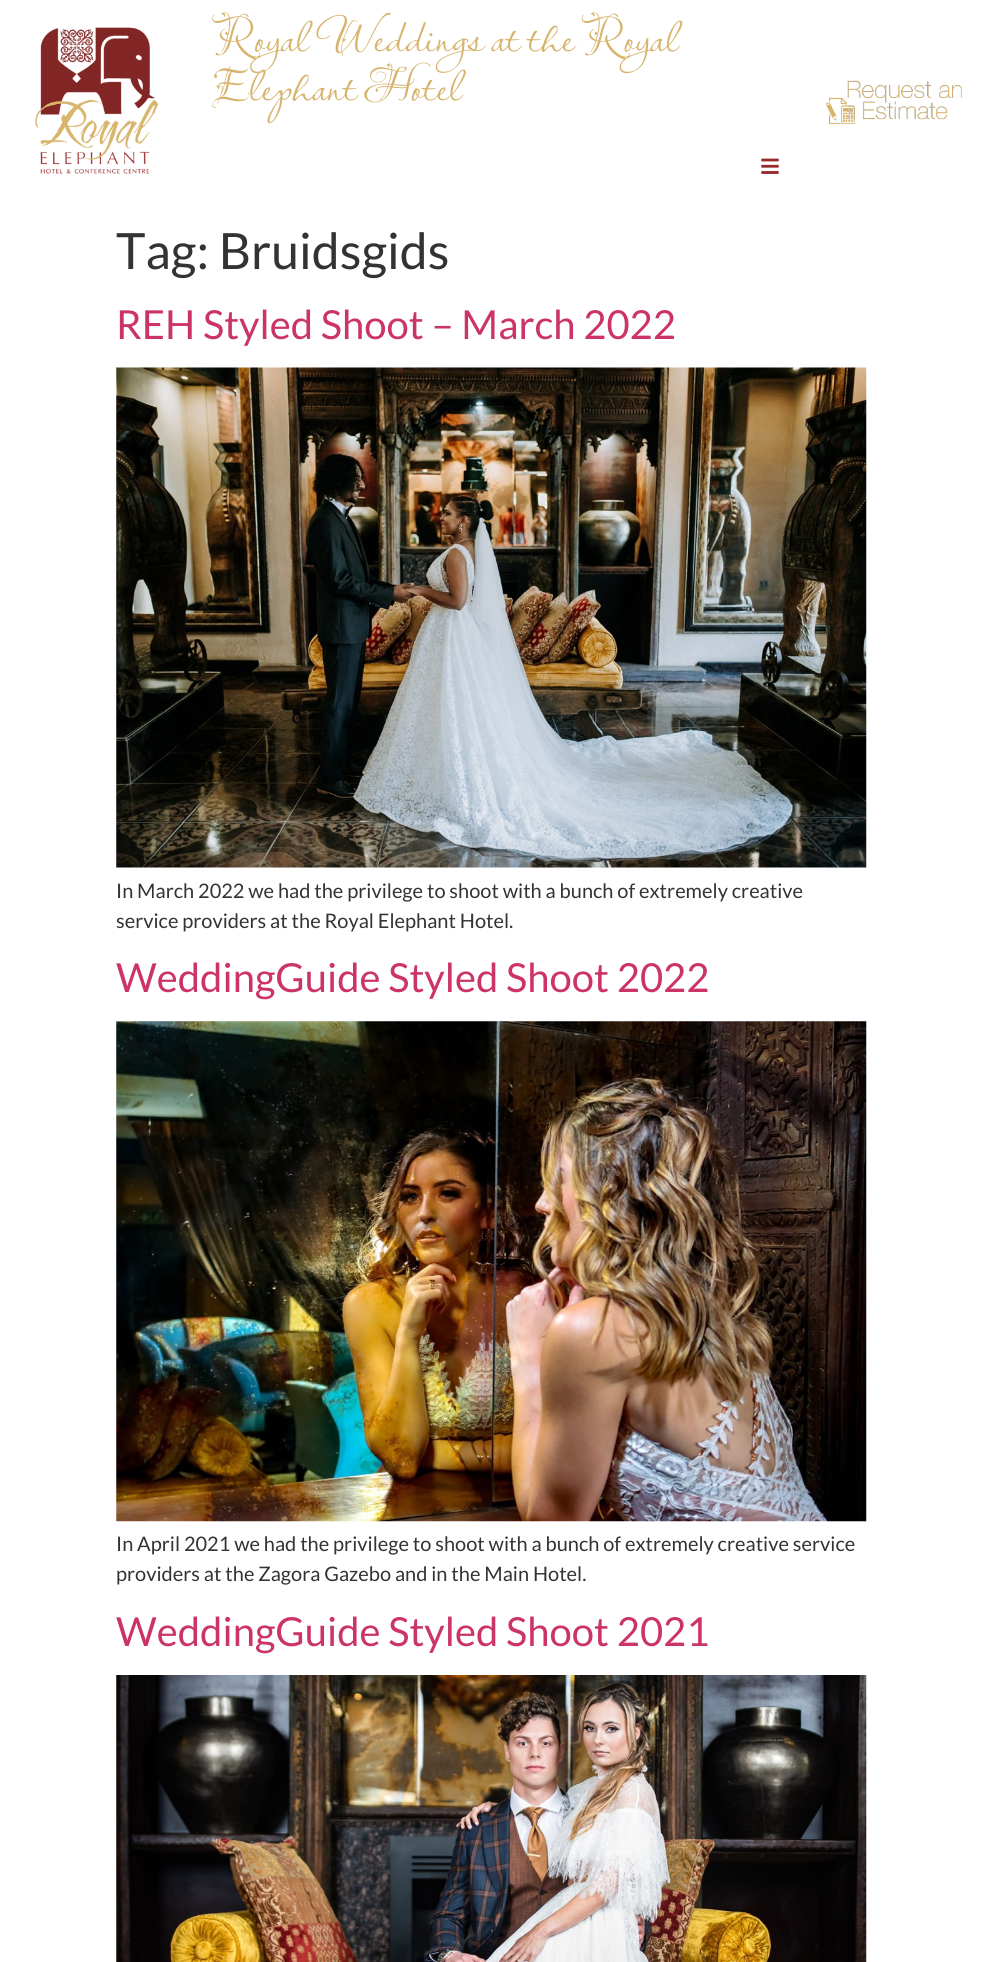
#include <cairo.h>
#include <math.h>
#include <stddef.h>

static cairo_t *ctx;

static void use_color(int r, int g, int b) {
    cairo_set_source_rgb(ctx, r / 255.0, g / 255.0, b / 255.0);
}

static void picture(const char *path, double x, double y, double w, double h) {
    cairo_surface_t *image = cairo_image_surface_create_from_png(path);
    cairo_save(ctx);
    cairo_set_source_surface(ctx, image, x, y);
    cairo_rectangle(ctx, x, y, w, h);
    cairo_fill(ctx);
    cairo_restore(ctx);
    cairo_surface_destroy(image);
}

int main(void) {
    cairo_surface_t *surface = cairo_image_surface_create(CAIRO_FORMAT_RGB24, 982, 1962);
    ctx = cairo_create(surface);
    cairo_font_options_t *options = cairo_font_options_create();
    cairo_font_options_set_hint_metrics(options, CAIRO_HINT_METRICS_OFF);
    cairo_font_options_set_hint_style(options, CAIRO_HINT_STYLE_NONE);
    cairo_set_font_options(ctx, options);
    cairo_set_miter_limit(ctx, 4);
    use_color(255, 255, 255);
    cairo_paint(ctx);
    picture("img1.png", 35, 27, 124, 147);
    cairo_select_font_face(ctx, "Lavishly Yours", CAIRO_FONT_SLANT_NORMAL, CAIRO_FONT_WEIGHT_NORMAL);
    cairo_set_font_size(ctx, 48.75);
    use_color(215, 180, 109);
    cairo_move_to(ctx, 212, 51);
    cairo_show_text(ctx, "Royal Weddings at the Royal");
    cairo_move_to(ctx, 212, 100);
    cairo_show_text(ctx, "Elephant Hotel");
    picture("img2.png", 761, 158, 18, 16);
    picture("img3.png", 825, 80, 138, 44);
    cairo_select_font_face(ctx, "Lato", CAIRO_FONT_SLANT_NORMAL, CAIRO_FONT_WEIGHT_NORMAL);
    cairo_set_font_size(ctx, 50);
    use_color(51, 51, 51);
    cairo_move_to(ctx, 116, 269);
    cairo_show_text(ctx, "Tag: Bruidsgids");
    cairo_set_font_size(ctx, 40);
    use_color(204, 51, 102);
    cairo_move_to(ctx, 116, 339);
    cairo_show_text(ctx, "REH Styled Shoot – March 2022");
    picture("img4.png", 116, 367, 751, 501);
    cairo_set_font_size(ctx, 20);
    use_color(51, 51, 51);
    cairo_move_to(ctx, 116, 898);
    cairo_show_text(ctx, "In March 2022 we had the privilege to shoot with a bunch of extremely creative");
    cairo_move_to(ctx, 116, 928);
    cairo_show_text(ctx, "service providers at the Royal Elephant Hotel.");
    cairo_set_font_size(ctx, 40);
    use_color(204, 51, 102);
    cairo_move_to(ctx, 116, 992);
    cairo_show_text(ctx, "WeddingGuide Styled Shoot 2022");
    picture("img5.png", 116, 1021, 751, 501);
    cairo_set_font_size(ctx, 20);
    use_color(51, 51, 51);
    cairo_move_to(ctx, 116, 1551);
    cairo_show_text(ctx, "In April 2021 we had the privilege to shoot with a bunch of extremely creative service");
    cairo_move_to(ctx, 116, 1581);
    cairo_show_text(ctx, "providers at the Zagora Gazebo and in the Main Hotel.");
    cairo_set_font_size(ctx, 40);
    use_color(204, 51, 102);
    cairo_move_to(ctx, 116, 1646);
    cairo_show_text(ctx, "WeddingGuide Styled Shoot 2021");
    picture("img6.png", 116, 1675, 751, 287);
    cairo_surface_write_to_png(surface, "result.png");
    cairo_font_options_destroy(options);
    cairo_destroy(ctx);
    cairo_surface_destroy(surface);
    return 0;
}
